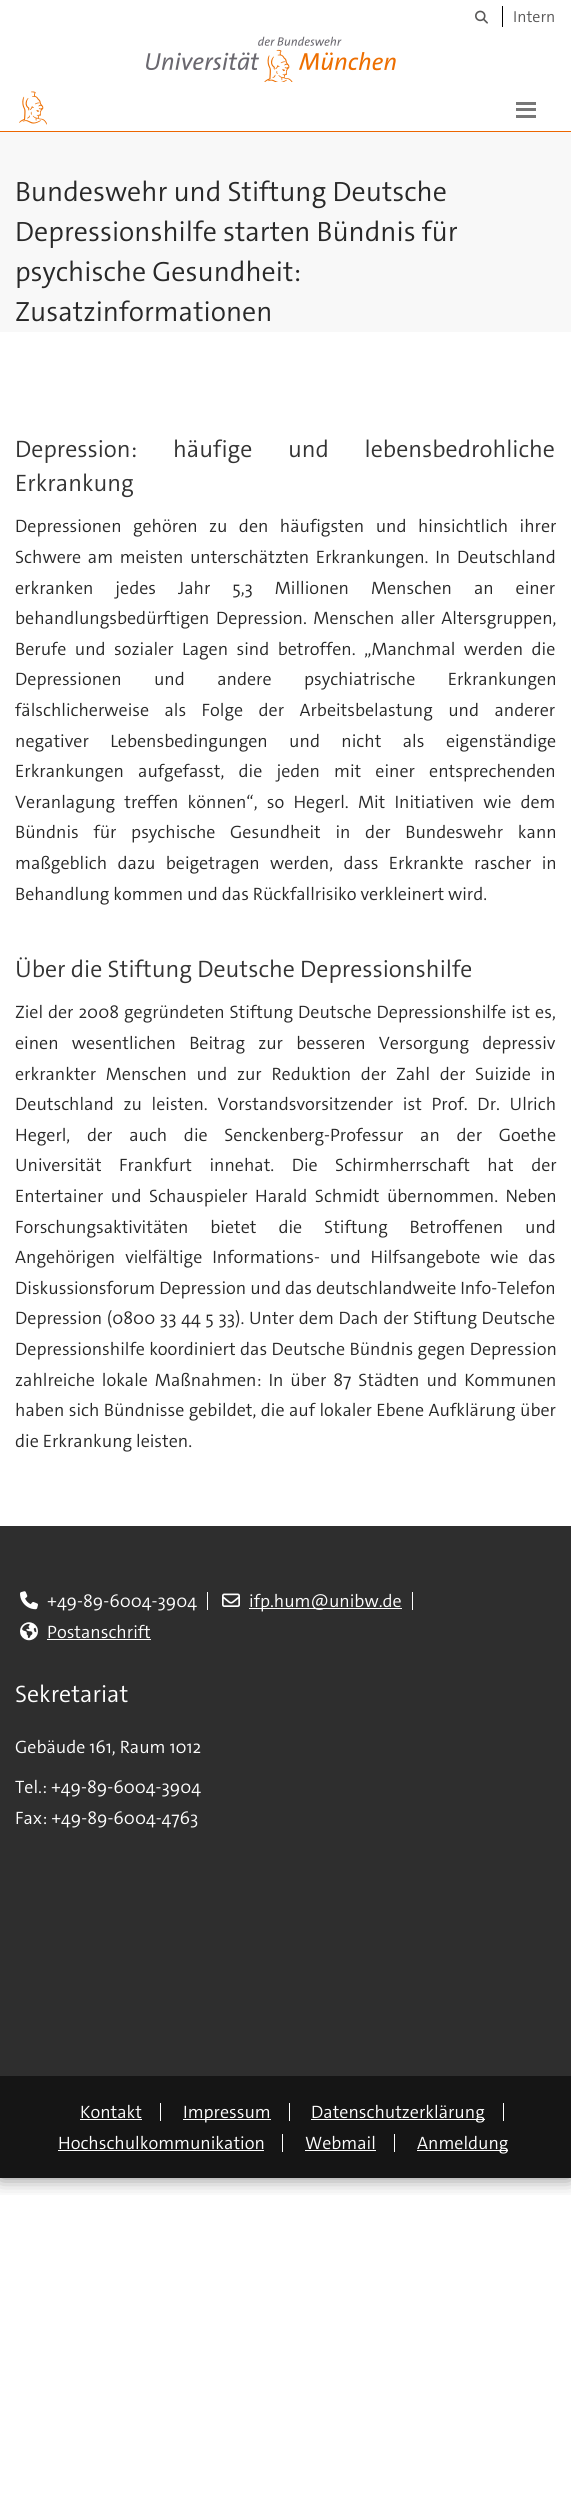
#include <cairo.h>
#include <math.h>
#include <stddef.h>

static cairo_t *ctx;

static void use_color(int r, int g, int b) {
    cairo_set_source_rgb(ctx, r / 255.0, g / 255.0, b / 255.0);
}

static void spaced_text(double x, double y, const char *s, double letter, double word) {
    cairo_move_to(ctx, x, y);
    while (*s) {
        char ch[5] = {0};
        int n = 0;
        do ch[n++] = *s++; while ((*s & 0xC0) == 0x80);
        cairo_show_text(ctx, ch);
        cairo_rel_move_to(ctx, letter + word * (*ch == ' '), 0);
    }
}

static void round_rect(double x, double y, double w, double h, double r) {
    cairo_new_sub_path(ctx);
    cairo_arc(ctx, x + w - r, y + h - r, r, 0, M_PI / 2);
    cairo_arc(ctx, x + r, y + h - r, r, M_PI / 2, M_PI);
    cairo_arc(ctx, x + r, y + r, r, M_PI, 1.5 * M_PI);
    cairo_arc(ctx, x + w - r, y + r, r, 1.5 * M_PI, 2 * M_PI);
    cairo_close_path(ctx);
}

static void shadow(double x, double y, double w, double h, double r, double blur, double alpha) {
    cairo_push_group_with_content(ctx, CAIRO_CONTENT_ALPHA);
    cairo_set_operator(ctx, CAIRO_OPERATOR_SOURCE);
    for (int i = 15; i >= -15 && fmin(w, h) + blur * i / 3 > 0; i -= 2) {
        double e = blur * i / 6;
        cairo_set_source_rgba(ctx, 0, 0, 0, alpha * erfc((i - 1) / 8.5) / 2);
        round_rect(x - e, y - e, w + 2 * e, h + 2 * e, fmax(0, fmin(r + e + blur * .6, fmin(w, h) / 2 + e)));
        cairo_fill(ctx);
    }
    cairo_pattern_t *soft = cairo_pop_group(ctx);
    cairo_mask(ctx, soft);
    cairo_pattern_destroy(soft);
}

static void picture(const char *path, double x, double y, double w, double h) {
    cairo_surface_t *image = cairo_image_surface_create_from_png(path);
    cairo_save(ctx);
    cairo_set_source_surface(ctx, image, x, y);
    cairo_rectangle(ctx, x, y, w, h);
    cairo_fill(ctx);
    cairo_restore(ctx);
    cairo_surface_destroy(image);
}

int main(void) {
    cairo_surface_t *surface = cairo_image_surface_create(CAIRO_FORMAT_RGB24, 571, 2516);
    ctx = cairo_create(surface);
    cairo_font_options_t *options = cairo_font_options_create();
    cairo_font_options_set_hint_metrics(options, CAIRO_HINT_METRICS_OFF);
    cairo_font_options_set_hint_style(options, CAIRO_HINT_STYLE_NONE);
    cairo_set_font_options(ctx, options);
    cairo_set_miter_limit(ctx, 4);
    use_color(255, 255, 255);
    cairo_paint(ctx);
    cairo_save(ctx);
    cairo_rectangle(ctx, 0, 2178, 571, 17);
    cairo_clip(ctx);
    use_color(0, 0, 0);
    shadow(0, 0, 571, 2178, 0, 10, 0.5);
    cairo_restore(ctx);
    use_color(237, 102, 0);
    cairo_rectangle(ctx, 0, 131, 571, 1);
    cairo_fill(ctx);
    picture("img1.png", 475, 10, 13, 14);
    cairo_select_font_face(ctx, "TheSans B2 Light", CAIRO_FONT_SLANT_NORMAL, CAIRO_FONT_WEIGHT_NORMAL);
    cairo_set_font_size(ctx, 16);
    use_color(89, 88, 88);
    cairo_move_to(ctx, 513, 22);
    cairo_show_text(ctx, "Intern");
    use_color(0, 0, 0);
    cairo_rectangle(ctx, 502, 6, 1, 21);
    cairo_fill(ctx);
    picture("img2.png", 264, 49, 29, 33);
    picture("img3.png", 146, 36, 250, 35);
    picture("img4.png", 19, 91, 28, 34);
    use_color(119, 119, 119);
    cairo_rectangle(ctx, 516, 102, 20, 3);
    cairo_fill(ctx);
    cairo_rectangle(ctx, 516, 108, 20, 3);
    cairo_fill(ctx);
    cairo_rectangle(ctx, 516, 115, 20, 3);
    cairo_fill(ctx);
    use_color(248, 248, 248);
    cairo_rectangle(ctx, 0, 132, 571, 200);
    cairo_fill(ctx);
    cairo_set_font_size(ctx, 28);
    use_color(40, 40, 40);
    cairo_move_to(ctx, 15, 201);
    cairo_show_text(ctx, "Bundeswehr und Stiftung Deutsche");
    cairo_move_to(ctx, 15, 241);
    cairo_show_text(ctx, "Depressionshilfe starten Bündnis für");
    cairo_move_to(ctx, 15, 281);
    cairo_show_text(ctx, "psychische Gesundheit:");
    cairo_move_to(ctx, 15, 321);
    cairo_show_text(ctx, "Zusatzinformationen");
    cairo_set_font_size(ctx, 23.9);
    use_color(51, 51, 51);
    spaced_text(15, 457, "Depression: häufige und lebensbedrohliche", 0, 30.5);
    cairo_move_to(ctx, 15, 491);
    cairo_show_text(ctx, "Erkrankung");
    cairo_set_font_size(ctx, 18);
    use_color(40, 40, 40);
    spaced_text(15, 532, "Depressionen gehören zu den häufigsten und hinsichtlich ihrer", 0, 7.5);
    spaced_text(15, 563, "Schwere am meisten unterschätzten Erkrankungen. In Deutschland", 0, 2.75);
    spaced_text(15, 594, "erkranken jedes Jahr 5,3 Millionen Menschen an einer", 0, 18);
    spaced_text(15, 624, "behandlungsbedürftigen Depression. Menschen aller Altersgruppen,", 0, 2.5);
    spaced_text(15, 655, "Berufe und sozialer Lagen sind betroffen. „Manchmal werden die", 0, 4.5);
    spaced_text(15, 685, "Depressionen und andere psychiatrische Erkrankungen", 0, 28.5);
    spaced_text(15, 716, "fälschlicherweise als Folge der Arbeitsbelastung und anderer", 0, 11.5);
    spaced_text(15, 747, "negativer Lebensbedingungen und nicht als eigenständige", 0, 17.5);
    spaced_text(15, 777, "Erkrankungen aufgefasst, die jeden mit einer entsprechenden", 0, 10.25);
    spaced_text(15, 808, "Veranlagung treffen können“, so Hegerl. Mit Initiativen wie dem", 0, 5.25);
    spaced_text(15, 838, "Bündnis für psychische Gesundheit in der Bundeswehr kann", 0, 10.75);
    spaced_text(15, 869, "maßgeblich dazu beigetragen werden, dass Erkrankte rascher in", 0, 6.5);
    cairo_move_to(ctx, 15, 900);
    cairo_show_text(ctx, "Behandlung kommen und das Rückfallrisiko verkleinert wird.");
    cairo_set_font_size(ctx, 23.9);
    use_color(51, 51, 51);
    cairo_move_to(ctx, 15, 977);
    cairo_show_text(ctx, "Über die Stiftung Deutsche Depressionshilfe");
    cairo_set_font_size(ctx, 18);
    use_color(40, 40, 40);
    spaced_text(15, 1018, "Ziel der 2008 gegründeten Stiftung Deutsche Depressionshilfe ist es,", 0, 1);
    spaced_text(15, 1049, "einen wesentlichen Beitrag zur besseren Versorgung depressiv", 0, 9.25);
    spaced_text(15, 1080, "erkrankter Menschen und zur Reduktion der Zahl der Suizide in", 0, 5.75);
    spaced_text(15, 1110, "Deutschland zu leisten. Vorstandsvorsitzender ist Prof. Dr. Ulrich", 0, 5.75);
    spaced_text(15, 1141, "Hegerl, der auch die Senckenberg-Professur an der Goethe", 0, 12.75);
    spaced_text(15, 1171, "Universität Frankfurt innehat. Die Schirmherrschaft hat der", 0, 13.5);
    spaced_text(15, 1202, "Entertainer und Schauspieler Harald Schmidt übernommen. Neben", 0, 3.5);
    spaced_text(15, 1233, "Forschungsaktivitäten bietet die Stiftung Betroffenen und", 0, 18);
    spaced_text(15, 1263, "Angehörigen vielfältige Informations- und Hilfsangebote wie das", 0, 6);
    cairo_move_to(ctx, 15, 1294);
    cairo_show_text(ctx, "Diskussionsforum Depression und das deutschlandweite Info-Telefon");
    spaced_text(15, 1324, "Depression (0800 33 44 5 33). Unter dem Dach der Stiftung Deutsche", 0, 0.75);
    spaced_text(15, 1355, "Depressionshilfe koordiniert das Deutsche Bündnis gegen Depression", 0, 0.5);
    spaced_text(15, 1386, "zahlreiche lokale Maßnahmen: In über 87 Städten und Kommunen", 0, 3);
    spaced_text(15, 1416, "haben sich Bündnisse gebildet, die auf lokaler Ebene Aufklärung über", 0, 0.5);
    cairo_move_to(ctx, 15, 1447);
    cairo_show_text(ctx, "die Erkrankung leisten.");
    use_color(46, 46, 46);
    cairo_rectangle(ctx, 0, 1526, 571, 550);
    cairo_fill(ctx);
    use_color(255, 255, 255);
    cairo_rectangle(ctx, 207, 1592, 1, 18);
    cairo_fill(ctx);
    picture("img5.png", 20, 1591, 18, 19);
    cairo_move_to(ctx, 47, 1607);
    cairo_show_text(ctx, "+49-89-6004-3904");
    cairo_rectangle(ctx, 412, 1592, 1, 18);
    cairo_fill(ctx);
    picture("img6.png", 222, 1593, 18, 14);
    cairo_rectangle(ctx, 249, 1608, 153, 1);
    cairo_fill(ctx);
    cairo_move_to(ctx, 249, 1607);
    cairo_show_text(ctx, "ifp.hum@unibw.de");
    picture("img7.png", 20, 1622, 18, 19);
    cairo_move_to(ctx, 47, 1638);
    cairo_show_text(ctx, "Postanschrift");
    cairo_rectangle(ctx, 47, 1639, 104, 1);
    cairo_fill(ctx);
    cairo_set_font_size(ctx, 23.9);
    cairo_move_to(ctx, 15, 1702);
    cairo_show_text(ctx, "Sekretariat");
    cairo_set_font_size(ctx, 18);
    cairo_move_to(ctx, 15, 1753);
    cairo_show_text(ctx, "Gebäude 161, Raum 1012");
    cairo_move_to(ctx, 15, 1793);
    cairo_show_text(ctx, "Tel.: +49-89-6004-3904");
    cairo_move_to(ctx, 15, 1824);
    cairo_show_text(ctx, "Fax: +49-89-6004-4763");
    use_color(21, 21, 21);
    cairo_rectangle(ctx, 0, 2076, 571, 102);
    cairo_fill(ctx);
    use_color(255, 255, 255);
    cairo_rectangle(ctx, 160, 2103, 1, 18);
    cairo_fill(ctx);
    cairo_move_to(ctx, 80, 2118);
    cairo_show_text(ctx, "Kontakt");
    cairo_rectangle(ctx, 80, 2119, 62, 1);
    cairo_fill(ctx);
    cairo_rectangle(ctx, 289, 2103, 1, 18);
    cairo_fill(ctx);
    cairo_rectangle(ctx, 183, 2119, 88, 1);
    cairo_fill(ctx);
    cairo_move_to(ctx, 183, 2118);
    cairo_show_text(ctx, "Impressum");
    cairo_rectangle(ctx, 503, 2103, 1, 18);
    cairo_fill(ctx);
    cairo_rectangle(ctx, 311, 2119, 174, 1);
    cairo_fill(ctx);
    cairo_move_to(ctx, 311, 2118);
    cairo_show_text(ctx, "Datenschutzerklärung");
    cairo_rectangle(ctx, 282, 2134, 1, 18);
    cairo_fill(ctx);
    cairo_move_to(ctx, 58, 2149);
    cairo_show_text(ctx, "Hochschulkommunikation");
    cairo_rectangle(ctx, 58, 2150, 206, 1);
    cairo_fill(ctx);
    cairo_rectangle(ctx, 394, 2134, 1, 18);
    cairo_fill(ctx);
    cairo_move_to(ctx, 305, 2149);
    cairo_show_text(ctx, "Webmail");
    cairo_rectangle(ctx, 305, 2150, 71, 1);
    cairo_fill(ctx);
    cairo_rectangle(ctx, 417, 2150, 91, 1);
    cairo_fill(ctx);
    cairo_move_to(ctx, 417, 2149);
    cairo_show_text(ctx, "Anmeldung");
    cairo_surface_write_to_png(surface, "result.png");
    cairo_font_options_destroy(options);
    cairo_destroy(ctx);
    cairo_surface_destroy(surface);
    return 0;
}
